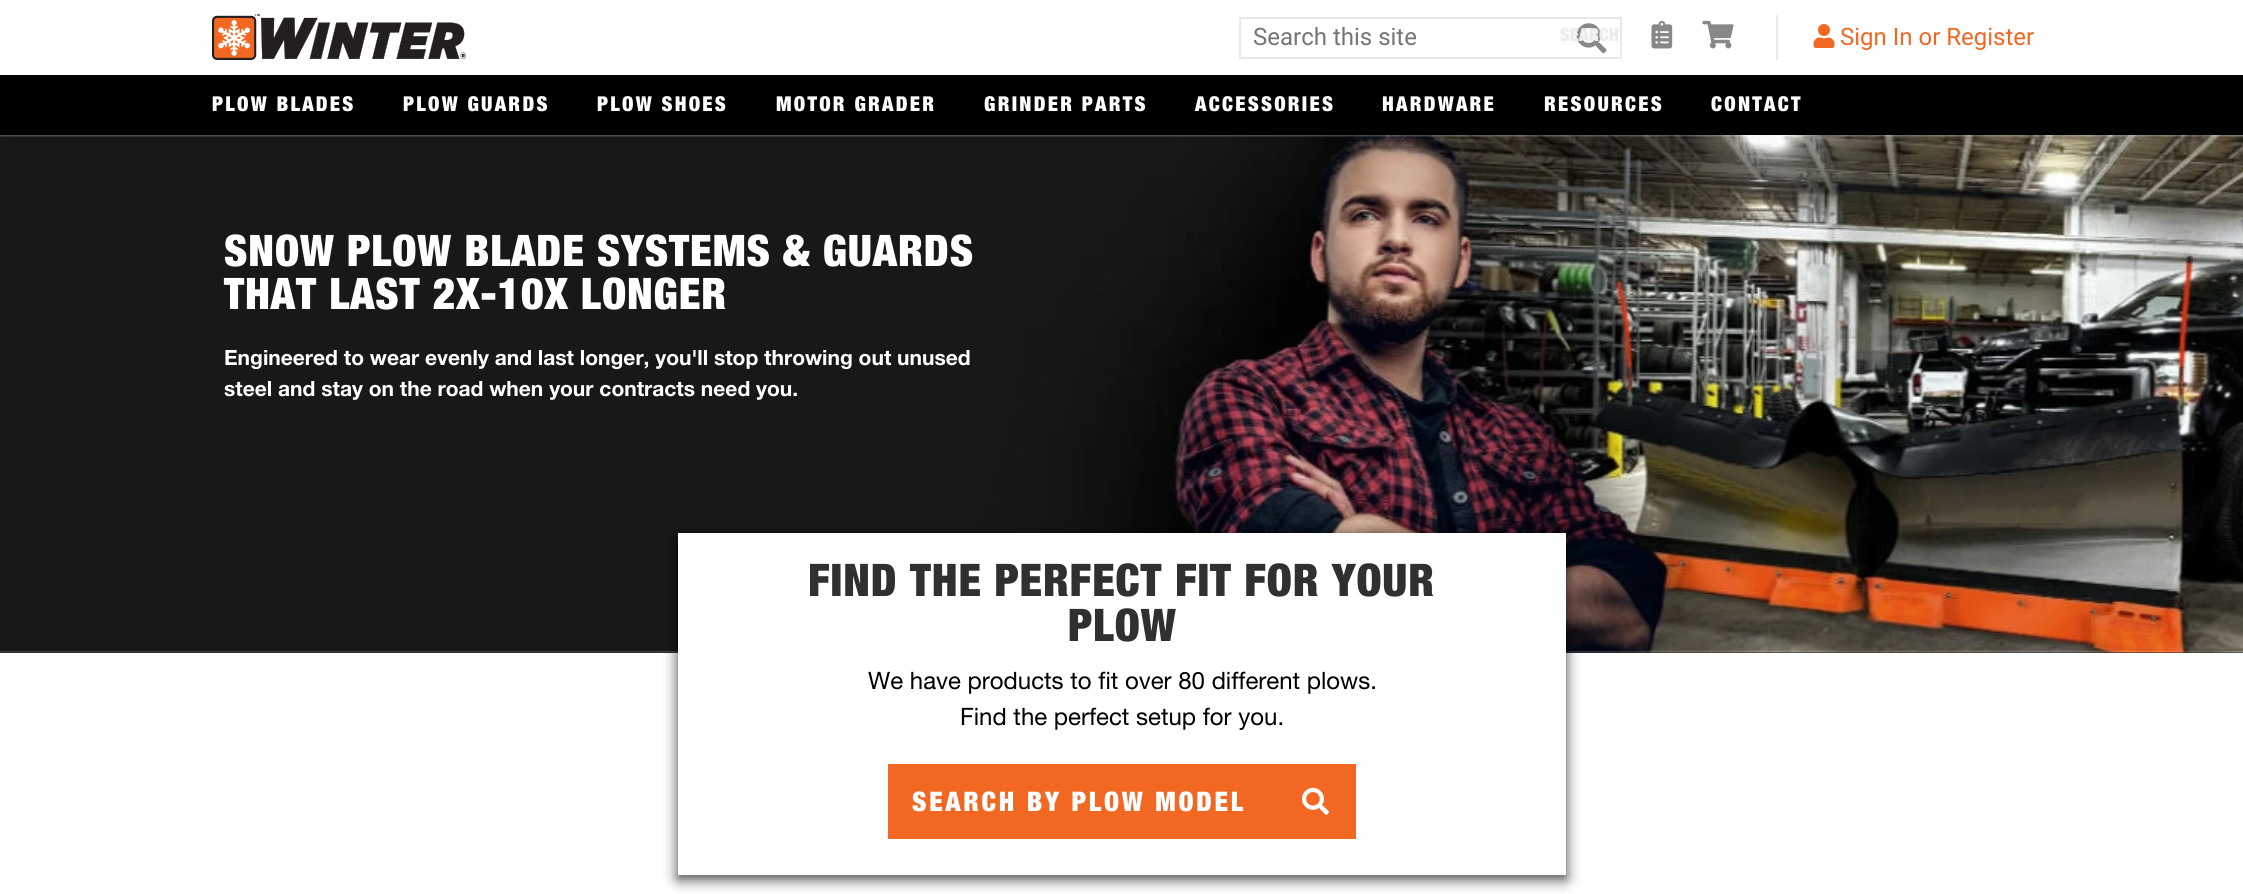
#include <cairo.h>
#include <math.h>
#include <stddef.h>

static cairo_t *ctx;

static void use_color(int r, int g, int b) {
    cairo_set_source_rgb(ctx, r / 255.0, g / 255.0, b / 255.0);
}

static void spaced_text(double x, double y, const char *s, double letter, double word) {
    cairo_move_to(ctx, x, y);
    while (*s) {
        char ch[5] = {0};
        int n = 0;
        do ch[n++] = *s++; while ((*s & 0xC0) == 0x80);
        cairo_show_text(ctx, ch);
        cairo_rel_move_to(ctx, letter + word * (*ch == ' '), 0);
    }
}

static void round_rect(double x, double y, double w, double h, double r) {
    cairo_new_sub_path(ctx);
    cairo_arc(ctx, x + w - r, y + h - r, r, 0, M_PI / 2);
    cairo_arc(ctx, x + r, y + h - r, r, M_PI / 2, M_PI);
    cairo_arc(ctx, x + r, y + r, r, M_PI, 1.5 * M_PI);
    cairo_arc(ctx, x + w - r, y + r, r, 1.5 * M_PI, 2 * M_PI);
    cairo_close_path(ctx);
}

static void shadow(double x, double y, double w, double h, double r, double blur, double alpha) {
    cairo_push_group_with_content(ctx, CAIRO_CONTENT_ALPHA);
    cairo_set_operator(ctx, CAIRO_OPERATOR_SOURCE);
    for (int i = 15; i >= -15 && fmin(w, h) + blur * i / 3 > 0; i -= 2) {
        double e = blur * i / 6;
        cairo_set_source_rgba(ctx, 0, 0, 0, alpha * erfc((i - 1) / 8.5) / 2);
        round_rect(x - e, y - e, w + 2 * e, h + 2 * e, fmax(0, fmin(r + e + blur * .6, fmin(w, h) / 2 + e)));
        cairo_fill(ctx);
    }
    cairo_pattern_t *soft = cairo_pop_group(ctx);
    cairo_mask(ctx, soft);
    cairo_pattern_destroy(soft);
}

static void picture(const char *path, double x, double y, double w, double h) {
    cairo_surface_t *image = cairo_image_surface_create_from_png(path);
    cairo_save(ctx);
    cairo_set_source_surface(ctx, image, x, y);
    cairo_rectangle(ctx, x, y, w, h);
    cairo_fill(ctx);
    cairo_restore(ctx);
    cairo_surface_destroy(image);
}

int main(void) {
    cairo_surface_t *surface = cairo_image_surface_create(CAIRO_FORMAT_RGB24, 2243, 894);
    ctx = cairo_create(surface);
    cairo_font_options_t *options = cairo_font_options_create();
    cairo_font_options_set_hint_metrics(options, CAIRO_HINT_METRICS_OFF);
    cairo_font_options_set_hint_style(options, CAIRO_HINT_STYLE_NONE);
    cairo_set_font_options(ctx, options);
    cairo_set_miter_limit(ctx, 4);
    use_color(255, 255, 255);
    cairo_paint(ctx);
    picture("img1.png", 212, 14, 254, 46);
    cairo_rectangle(ctx, 1240, 18, 381, 40);
    use_color(234, 233, 233);
    cairo_stroke(ctx);
    cairo_select_font_face(ctx, "Roboto", CAIRO_FONT_SLANT_NORMAL, CAIRO_FONT_WEIGHT_NORMAL);
    cairo_set_font_size(ctx, 24);
    use_color(117, 117, 117);
    cairo_move_to(ctx, 1253, 45);
    cairo_show_text(ctx, "Search this site");
    picture("img2.png", 1576, 23, 31, 31);
    cairo_select_font_face(ctx, "Helvetica Neue Black", CAIRO_FONT_SLANT_NORMAL, CAIRO_FONT_WEIGHT_NORMAL);
    cairo_set_font_size(ctx, 18);
    use_color(236, 236, 236);
    cairo_move_to(ctx, 1560, 41);
    cairo_show_text(ctx, "SEARCH");
    picture("img3.png", 1651, 20, 22, 29);
    picture("img4.png", 1702, 20, 32, 29);
    use_color(234, 233, 233);
    cairo_rectangle(ctx, 1776, 15, 2, 45);
    cairo_fill(ctx);
    picture("img5.png", 1813, 24, 22, 24);
    cairo_select_font_face(ctx, "Roboto", CAIRO_FONT_SLANT_NORMAL, CAIRO_FONT_WEIGHT_NORMAL);
    cairo_set_font_size(ctx, 24);
    use_color(242, 103, 34);
    cairo_move_to(ctx, 1840, 45);
    cairo_show_text(ctx, "Sign In or Register");
    use_color(0, 0, 0);
    cairo_rectangle(ctx, 0, 75, 2243, 60);
    cairo_fill(ctx);
    cairo_select_font_face(ctx, "Helvetica Neue Black", CAIRO_FONT_SLANT_NORMAL, CAIRO_FONT_WEIGHT_NORMAL);
    cairo_set_font_size(ctx, 20.5);
    use_color(255, 255, 255);
    spaced_text(212, 111, "PLOW BLADES", 2.25, 0);
    spaced_text(403, 111, "PLOW GUARDS", 2.25, 0);
    spaced_text(597, 111, "PLOW SHOES", 2.25, 0);
    spaced_text(776, 111, "MOTOR GRADER", 2.25, 0);
    spaced_text(984, 111, "GRINDER PARTS", 2.25, 0);
    spaced_text(1195, 111, "ACCESSORIES", 2.25, 0);
    spaced_text(1382, 111, "HARDWARE", 2.25, 0);
    spaced_text(1544, 111, "RESOURCES", 2.25, 0);
    spaced_text(1711, 111, "CONTACT", 2.25, 0);
    use_color(24, 24, 24);
    cairo_rectangle(ctx, 0, 652, 2243, 1);
    cairo_fill(ctx);
    picture("img6.png", 0, 135, 2243, 518);
    cairo_set_font_size(ctx, 43.5);
    use_color(255, 255, 255);
    spaced_text(224, 266, "SNOW PLOW BLADE SYSTEMS & GUARDS", 0.9, 0);
    spaced_text(224, 309, "THAT LAST 2X-10X LONGER", 0.9, 0);
    cairo_select_font_face(ctx, "Helvetica Neue", CAIRO_FONT_SLANT_NORMAL, CAIRO_FONT_WEIGHT_BOLD);
    cairo_set_font_size(ctx, 21);
    cairo_move_to(ctx, 224, 365);
    cairo_show_text(ctx, "Engineered to wear evenly and last longer, you'll stop throwing out unused");
    cairo_move_to(ctx, 224, 396);
    cairo_show_text(ctx, "steel and stay on the road when your contracts need you.");
    use_color(0, 0, 0);
    shadow(678, 537, 888, 342, 0, 7, 0.75);
    use_color(255, 255, 255);
    cairo_rectangle(ctx, 678, 533, 888, 342);
    cairo_fill(ctx);
    cairo_select_font_face(ctx, "Helvetica Neue Black", CAIRO_FONT_SLANT_NORMAL, CAIRO_FONT_WEIGHT_NORMAL);
    cairo_set_font_size(ctx, 45);
    use_color(48, 48, 48);
    spaced_text(808, 596, "FIND THE PERFECT FIT FOR YOUR", 0.9, 0);
    spaced_text(1068, 641, "PLOW", 0.9, 0);
    cairo_select_font_face(ctx, "Helvetica Neue", CAIRO_FONT_SLANT_NORMAL, CAIRO_FONT_WEIGHT_NORMAL);
    cairo_set_font_size(ctx, 24);
    use_color(0, 0, 0);
    cairo_move_to(ctx, 868, 689);
    cairo_show_text(ctx, "We have products to fit over 80 different plows.");
    cairo_move_to(ctx, 960, 725);
    cairo_show_text(ctx, "Find the perfect setup for you.");
    use_color(242, 103, 34);
    cairo_rectangle(ctx, 888, 764, 468, 75);
    cairo_fill(ctx);
    cairo_select_font_face(ctx, "Helvetica Neue Black", CAIRO_FONT_SLANT_NORMAL, CAIRO_FONT_WEIGHT_NORMAL);
    cairo_set_font_size(ctx, 27);
    use_color(255, 255, 255);
    spaced_text(912, 811, "SEARCH BY PLOW MODEL", 2.75, 0);
    picture("img7.png", 1302, 787, 27, 28);
    cairo_surface_write_to_png(surface, "result.png");
    cairo_font_options_destroy(options);
    cairo_destroy(ctx);
    cairo_surface_destroy(surface);
    return 0;
}
